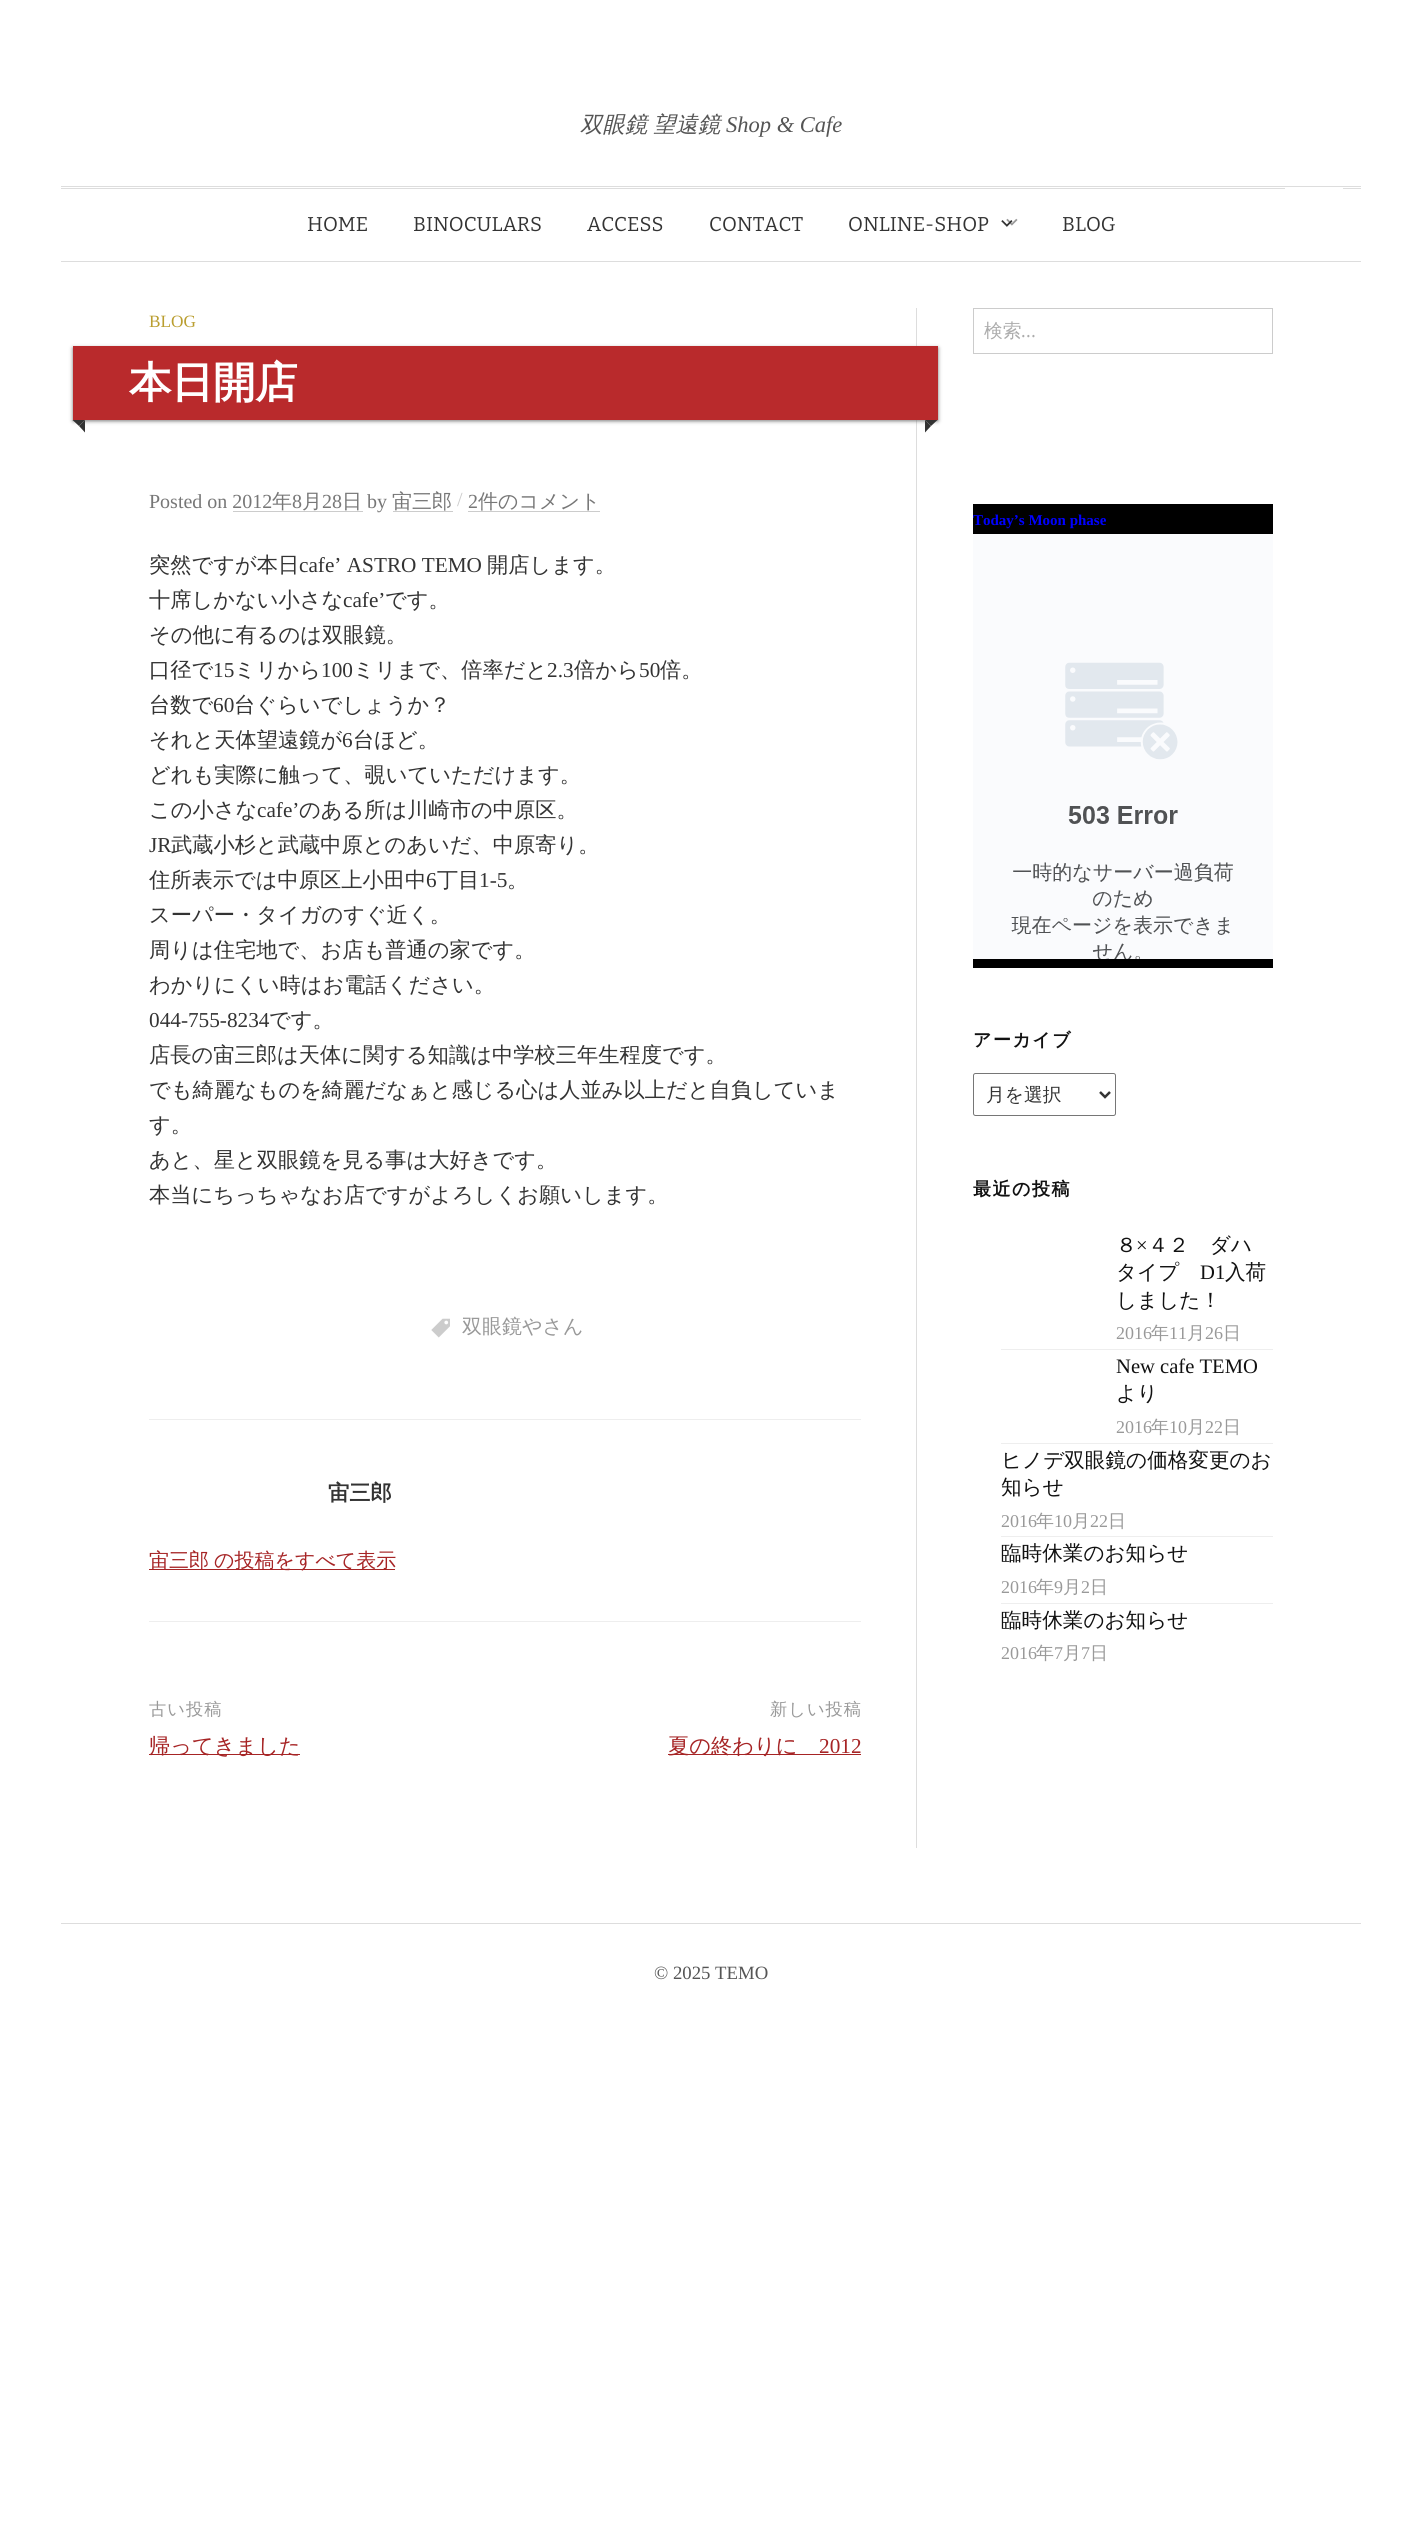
#include <cairo.h>
#include <math.h>
#include <stddef.h>

static cairo_t *ctx;

static void use_color(int r, int g, int b) {
    cairo_set_source_rgb(ctx, r / 255.0, g / 255.0, b / 255.0);
}

static void spaced_text(double x, double y, const char *s, double letter, double word) {
    cairo_move_to(ctx, x, y);
    while (*s) {
        char ch[5] = {0};
        int n = 0;
        do ch[n++] = *s++; while ((*s & 0xC0) == 0x80);
        cairo_show_text(ctx, ch);
        cairo_rel_move_to(ctx, letter + word * (*ch == ' '), 0);
    }
}

static void round_rect(double x, double y, double w, double h, double r) {
    cairo_new_sub_path(ctx);
    cairo_arc(ctx, x + w - r, y + h - r, r, 0, M_PI / 2);
    cairo_arc(ctx, x + r, y + h - r, r, M_PI / 2, M_PI);
    cairo_arc(ctx, x + r, y + r, r, M_PI, 1.5 * M_PI);
    cairo_arc(ctx, x + w - r, y + r, r, 1.5 * M_PI, 2 * M_PI);
    cairo_close_path(ctx);
}

static void shadow(double x, double y, double w, double h, double r, double blur, double alpha) {
    cairo_push_group_with_content(ctx, CAIRO_CONTENT_ALPHA);
    cairo_set_operator(ctx, CAIRO_OPERATOR_SOURCE);
    for (int i = 15; i >= -15 && fmin(w, h) + blur * i / 3 > 0; i -= 2) {
        double e = blur * i / 6;
        cairo_set_source_rgba(ctx, 0, 0, 0, alpha * erfc((i - 1) / 8.5) / 2);
        round_rect(x - e, y - e, w + 2 * e, h + 2 * e, fmax(0, fmin(r + e + blur * .6, fmin(w, h) / 2 + e)));
        cairo_fill(ctx);
    }
    cairo_pattern_t *soft = cairo_pop_group(ctx);
    cairo_mask(ctx, soft);
    cairo_pattern_destroy(soft);
}

static void picture(const char *path, double x, double y, double w, double h) {
    cairo_surface_t *image = cairo_image_surface_create_from_png(path);
    cairo_save(ctx);
    cairo_set_source_surface(ctx, image, x, y);
    cairo_rectangle(ctx, x, y, w, h);
    cairo_fill(ctx);
    cairo_restore(ctx);
    cairo_surface_destroy(image);
}

int main(void) {
    cairo_surface_t *surface = cairo_image_surface_create(CAIRO_FORMAT_RGB24, 1422, 2531);
    ctx = cairo_create(surface);
    cairo_font_options_t *options = cairo_font_options_create();
    cairo_font_options_set_hint_metrics(options, CAIRO_HINT_METRICS_OFF);
    cairo_font_options_set_hint_style(options, CAIRO_HINT_STYLE_NONE);
    cairo_set_font_options(ctx, options);
    cairo_set_miter_limit(ctx, 4);
    use_color(255, 255, 255);
    cairo_paint(ctx);
    cairo_select_font_face(ctx, "WenQuanYi Zen Hei Medium", CAIRO_FONT_SLANT_ITALIC, CAIRO_FONT_WEIGHT_NORMAL);
    cairo_set_font_size(ctx, 22.5);
    use_color(85, 85, 85);
    cairo_move_to(ctx, 580, 132);
    cairo_show_text(ctx, "双眼鏡");
    cairo_move_to(ctx, 653, 132);
    cairo_show_text(ctx, "望遠鏡");
    cairo_select_font_face(ctx, "Liberation Serif", CAIRO_FONT_SLANT_ITALIC, CAIRO_FONT_WEIGHT_NORMAL);
    cairo_move_to(ctx, 726, 132);
    cairo_show_text(ctx, "Shop & Cafe");
    use_color(221, 221, 221);
    cairo_rectangle(ctx, 61, 186, 1300, 1);
    cairo_fill(ctx);
    cairo_rectangle(ctx, 61, 261, 1300, 1);
    cairo_fill(ctx);
    cairo_rectangle(ctx, 61, 188, 1300, 1);
    cairo_fill(ctx);
    use_color(255, 255, 255);
    cairo_rectangle(ctx, 1285, 188, 58, 1);
    cairo_fill(ctx);
    cairo_select_font_face(ctx, "Bitter", CAIRO_FONT_SLANT_NORMAL, CAIRO_FONT_WEIGHT_NORMAL);
    cairo_set_font_size(ctx, 20);
    use_color(51, 51, 51);
    cairo_move_to(ctx, 307, 231);
    cairo_show_text(ctx, "HOME");
    cairo_move_to(ctx, 413, 231);
    cairo_show_text(ctx, "BINOCULARS");
    cairo_move_to(ctx, 587, 231);
    cairo_show_text(ctx, "ACCESS");
    cairo_move_to(ctx, 709, 231);
    cairo_show_text(ctx, "CONTACT");
    cairo_move_to(ctx, 848, 231);
    cairo_show_text(ctx, "ONLINE-SHOP");
    picture("img1.png", 1006, 218, 12, 8);
    picture("img2.png", 1001, 220, 12, 7);
    cairo_move_to(ctx, 1062, 231);
    cairo_show_text(ctx, "BLOG");
    use_color(221, 221, 221);
    cairo_rectangle(ctx, 916, 308, 1, 1540);
    cairo_fill(ctx);
    cairo_select_font_face(ctx, "Liberation Serif", CAIRO_FONT_SLANT_NORMAL, CAIRO_FONT_WEIGHT_NORMAL);
    cairo_set_font_size(ctx, 17.25);
    use_color(186, 158, 48);
    cairo_move_to(ctx, 149, 327);
    cairo_show_text(ctx, "BLOG");
    use_color(119, 119, 119);
    shadow(73, 348, 865, 73, 0, 2, 1);
    use_color(185, 42, 44);
    cairo_rectangle(ctx, 73, 346, 865, 74);
    cairo_fill(ctx);
    cairo_select_font_face(ctx, "WenQuanYi Zen Hei", CAIRO_FONT_SLANT_NORMAL, CAIRO_FONT_WEIGHT_BOLD);
    cairo_set_font_size(ctx, 42.5);
    use_color(255, 255, 255);
    spaced_text(129, 397, "本日開店", -0.5, 0);
    use_color(51, 51, 51);
    cairo_new_path(ctx);
    cairo_move_to(ctx, 72.5, 420);
    cairo_line_to(ctx, 85, 420);
    cairo_line_to(ctx, 79, 426);
    cairo_close_path(ctx);
    cairo_fill(ctx);
    cairo_new_path(ctx);
    cairo_move_to(ctx, 85, 420);
    cairo_line_to(ctx, 85, 432.5);
    cairo_line_to(ctx, 79, 426);
    cairo_close_path(ctx);
    cairo_fill(ctx);
    cairo_new_path(ctx);
    cairo_move_to(ctx, 925, 420);
    cairo_line_to(ctx, 937.5, 420);
    cairo_line_to(ctx, 931, 426);
    cairo_close_path(ctx);
    cairo_fill(ctx);
    cairo_new_path(ctx);
    cairo_move_to(ctx, 925, 432.5);
    cairo_line_to(ctx, 925, 420);
    cairo_line_to(ctx, 931, 426);
    cairo_close_path(ctx);
    cairo_fill(ctx);
    cairo_select_font_face(ctx, "Liberation Serif", CAIRO_FONT_SLANT_NORMAL, CAIRO_FONT_WEIGHT_NORMAL);
    cairo_set_font_size(ctx, 20);
    use_color(119, 119, 119);
    cairo_move_to(ctx, 149, 508);
    cairo_show_text(ctx, "Posted on 2012");
    cairo_select_font_face(ctx, "WenQuanYi Zen Hei Medium", CAIRO_FONT_SLANT_NORMAL, CAIRO_FONT_WEIGHT_NORMAL);
    cairo_move_to(ctx, 272, 508);
    cairo_show_text(ctx, "年");
    cairo_select_font_face(ctx, "Liberation Serif", CAIRO_FONT_SLANT_NORMAL, CAIRO_FONT_WEIGHT_NORMAL);
    cairo_move_to(ctx, 292, 508);
    cairo_show_text(ctx, "8");
    use_color(204, 204, 204);
    cairo_rectangle(ctx, 233, 511, 130, 1);
    cairo_fill(ctx);
    cairo_select_font_face(ctx, "WenQuanYi Zen Hei Medium", CAIRO_FONT_SLANT_NORMAL, CAIRO_FONT_WEIGHT_NORMAL);
    use_color(119, 119, 119);
    cairo_move_to(ctx, 302, 508);
    cairo_show_text(ctx, "月");
    cairo_select_font_face(ctx, "Liberation Serif", CAIRO_FONT_SLANT_NORMAL, CAIRO_FONT_WEIGHT_NORMAL);
    cairo_move_to(ctx, 322, 508);
    cairo_show_text(ctx, "28");
    cairo_select_font_face(ctx, "WenQuanYi Zen Hei Medium", CAIRO_FONT_SLANT_NORMAL, CAIRO_FONT_WEIGHT_NORMAL);
    cairo_move_to(ctx, 342, 508);
    cairo_show_text(ctx, "日");
    cairo_select_font_face(ctx, "Liberation Serif", CAIRO_FONT_SLANT_NORMAL, CAIRO_FONT_WEIGHT_NORMAL);
    cairo_move_to(ctx, 367, 508);
    cairo_show_text(ctx, "by");
    use_color(204, 204, 204);
    cairo_rectangle(ctx, 393, 511, 60, 1);
    cairo_fill(ctx);
    cairo_select_font_face(ctx, "WenQuanYi Zen Hei Medium", CAIRO_FONT_SLANT_NORMAL, CAIRO_FONT_WEIGHT_NORMAL);
    use_color(119, 119, 119);
    cairo_move_to(ctx, 392, 508);
    cairo_show_text(ctx, "宙三郎");
    cairo_select_font_face(ctx, "Liberation Serif", CAIRO_FONT_SLANT_NORMAL, CAIRO_FONT_WEIGHT_NORMAL);
    use_color(204, 204, 204);
    cairo_move_to(ctx, 457, 506);
    cairo_show_text(ctx, "/");
    use_color(119, 119, 119);
    cairo_move_to(ctx, 468, 508);
    cairo_show_text(ctx, "2");
    cairo_select_font_face(ctx, "WenQuanYi Zen Hei Medium", CAIRO_FONT_SLANT_NORMAL, CAIRO_FONT_WEIGHT_NORMAL);
    cairo_move_to(ctx, 478, 508);
    cairo_show_text(ctx, "件のコメント");
    use_color(204, 204, 204);
    cairo_rectangle(ctx, 468, 511, 132, 1);
    cairo_fill(ctx);
    cairo_set_font_size(ctx, 21.25);
    use_color(51, 51, 51);
    cairo_move_to(ctx, 149, 572);
    cairo_show_text(ctx, "突然ですが本日");
    cairo_select_font_face(ctx, "Liberation Serif", CAIRO_FONT_SLANT_NORMAL, CAIRO_FONT_WEIGHT_NORMAL);
    cairo_move_to(ctx, 299, 572);
    cairo_show_text(ctx, "cafe’ ASTRO TEMO");
    cairo_select_font_face(ctx, "WenQuanYi Zen Hei Medium", CAIRO_FONT_SLANT_NORMAL, CAIRO_FONT_WEIGHT_NORMAL);
    cairo_move_to(ctx, 487, 572);
    cairo_show_text(ctx, "開店します。");
    cairo_move_to(ctx, 149, 607);
    cairo_show_text(ctx, "十席しかない小さな");
    cairo_select_font_face(ctx, "Liberation Serif", CAIRO_FONT_SLANT_NORMAL, CAIRO_FONT_WEIGHT_NORMAL);
    cairo_move_to(ctx, 343, 607);
    cairo_show_text(ctx, "cafe’");
    cairo_select_font_face(ctx, "WenQuanYi Zen Hei Medium", CAIRO_FONT_SLANT_NORMAL, CAIRO_FONT_WEIGHT_NORMAL);
    cairo_move_to(ctx, 385, 607);
    cairo_show_text(ctx, "です。");
    cairo_move_to(ctx, 149, 642);
    cairo_show_text(ctx, "その他に有るのは双眼鏡。");
    cairo_move_to(ctx, 149, 677);
    cairo_show_text(ctx, "口径で");
    cairo_select_font_face(ctx, "Liberation Serif", CAIRO_FONT_SLANT_NORMAL, CAIRO_FONT_WEIGHT_NORMAL);
    cairo_move_to(ctx, 213, 677);
    cairo_show_text(ctx, "15");
    cairo_select_font_face(ctx, "WenQuanYi Zen Hei Medium", CAIRO_FONT_SLANT_NORMAL, CAIRO_FONT_WEIGHT_NORMAL);
    cairo_move_to(ctx, 234, 677);
    cairo_show_text(ctx, "ミリから");
    cairo_select_font_face(ctx, "Liberation Serif", CAIRO_FONT_SLANT_NORMAL, CAIRO_FONT_WEIGHT_NORMAL);
    cairo_move_to(ctx, 321, 677);
    cairo_show_text(ctx, "100");
    cairo_select_font_face(ctx, "WenQuanYi Zen Hei Medium", CAIRO_FONT_SLANT_NORMAL, CAIRO_FONT_WEIGHT_NORMAL);
    cairo_move_to(ctx, 353, 677);
    cairo_show_text(ctx, "ミリまで、倍率だと");
    cairo_select_font_face(ctx, "Liberation Serif", CAIRO_FONT_SLANT_NORMAL, CAIRO_FONT_WEIGHT_NORMAL);
    cairo_move_to(ctx, 547, 677);
    cairo_show_text(ctx, "2.3");
    cairo_select_font_face(ctx, "WenQuanYi Zen Hei Medium", CAIRO_FONT_SLANT_NORMAL, CAIRO_FONT_WEIGHT_NORMAL);
    cairo_move_to(ctx, 574, 677);
    cairo_show_text(ctx, "倍から");
    cairo_select_font_face(ctx, "Liberation Serif", CAIRO_FONT_SLANT_NORMAL, CAIRO_FONT_WEIGHT_NORMAL);
    cairo_move_to(ctx, 639, 677);
    cairo_show_text(ctx, "50");
    cairo_select_font_face(ctx, "WenQuanYi Zen Hei Medium", CAIRO_FONT_SLANT_NORMAL, CAIRO_FONT_WEIGHT_NORMAL);
    cairo_move_to(ctx, 660, 677);
    cairo_show_text(ctx, "倍。");
    cairo_move_to(ctx, 149, 712);
    cairo_show_text(ctx, "台数で");
    cairo_select_font_face(ctx, "Liberation Serif", CAIRO_FONT_SLANT_NORMAL, CAIRO_FONT_WEIGHT_NORMAL);
    cairo_move_to(ctx, 213, 712);
    cairo_show_text(ctx, "60");
    cairo_select_font_face(ctx, "WenQuanYi Zen Hei Medium", CAIRO_FONT_SLANT_NORMAL, CAIRO_FONT_WEIGHT_NORMAL);
    cairo_move_to(ctx, 234, 712);
    cairo_show_text(ctx, "台ぐらいでしょうか？");
    cairo_move_to(ctx, 149, 747);
    cairo_show_text(ctx, "それと天体望遠鏡が");
    cairo_select_font_face(ctx, "Liberation Serif", CAIRO_FONT_SLANT_NORMAL, CAIRO_FONT_WEIGHT_NORMAL);
    cairo_move_to(ctx, 342, 747);
    cairo_show_text(ctx, "6");
    cairo_select_font_face(ctx, "WenQuanYi Zen Hei Medium", CAIRO_FONT_SLANT_NORMAL, CAIRO_FONT_WEIGHT_NORMAL);
    cairo_move_to(ctx, 353, 747);
    cairo_show_text(ctx, "台ほど。");
    cairo_move_to(ctx, 149, 782);
    cairo_show_text(ctx, "どれも実際に触って、覗いていただけます。");
    cairo_move_to(ctx, 149, 817);
    cairo_show_text(ctx, "この小さな");
    cairo_select_font_face(ctx, "Liberation Serif", CAIRO_FONT_SLANT_NORMAL, CAIRO_FONT_WEIGHT_NORMAL);
    cairo_move_to(ctx, 257, 817);
    cairo_show_text(ctx, "cafe’");
    cairo_select_font_face(ctx, "WenQuanYi Zen Hei Medium", CAIRO_FONT_SLANT_NORMAL, CAIRO_FONT_WEIGHT_NORMAL);
    cairo_move_to(ctx, 299, 817);
    cairo_show_text(ctx, "のある所は川崎市の中原区。");
    cairo_select_font_face(ctx, "Liberation Serif", CAIRO_FONT_SLANT_NORMAL, CAIRO_FONT_WEIGHT_NORMAL);
    cairo_move_to(ctx, 149, 852);
    cairo_show_text(ctx, "JR");
    cairo_select_font_face(ctx, "WenQuanYi Zen Hei Medium", CAIRO_FONT_SLANT_NORMAL, CAIRO_FONT_WEIGHT_NORMAL);
    cairo_move_to(ctx, 171, 852);
    cairo_show_text(ctx, "武蔵小杉と武蔵中原とのあいだ、中原寄り。");
    cairo_move_to(ctx, 149, 887);
    cairo_show_text(ctx, "住所表示では中原区上小田中");
    cairo_select_font_face(ctx, "Liberation Serif", CAIRO_FONT_SLANT_NORMAL, CAIRO_FONT_WEIGHT_NORMAL);
    cairo_move_to(ctx, 426, 887);
    cairo_show_text(ctx, "6");
    cairo_select_font_face(ctx, "WenQuanYi Zen Hei Medium", CAIRO_FONT_SLANT_NORMAL, CAIRO_FONT_WEIGHT_NORMAL);
    cairo_move_to(ctx, 437, 887);
    cairo_show_text(ctx, "丁目");
    cairo_select_font_face(ctx, "Liberation Serif", CAIRO_FONT_SLANT_NORMAL, CAIRO_FONT_WEIGHT_NORMAL);
    cairo_move_to(ctx, 479, 887);
    cairo_show_text(ctx, "1-5");
    cairo_select_font_face(ctx, "WenQuanYi Zen Hei Medium", CAIRO_FONT_SLANT_NORMAL, CAIRO_FONT_WEIGHT_NORMAL);
    cairo_move_to(ctx, 507, 887);
    cairo_show_text(ctx, "。");
    cairo_move_to(ctx, 149, 922);
    cairo_show_text(ctx, "スーパー・タイガのすぐ近く。");
    cairo_move_to(ctx, 149, 957);
    cairo_show_text(ctx, "周りは住宅地で、お店も普通の家です。");
    cairo_move_to(ctx, 149, 992);
    cairo_show_text(ctx, "わかりにくい時はお電話ください。");
    cairo_select_font_face(ctx, "Liberation Serif", CAIRO_FONT_SLANT_NORMAL, CAIRO_FONT_WEIGHT_NORMAL);
    cairo_move_to(ctx, 149, 1027);
    cairo_show_text(ctx, "044-755-8234");
    cairo_select_font_face(ctx, "WenQuanYi Zen Hei Medium", CAIRO_FONT_SLANT_NORMAL, CAIRO_FONT_WEIGHT_NORMAL);
    cairo_move_to(ctx, 269, 1027);
    cairo_show_text(ctx, "です。");
    cairo_move_to(ctx, 149, 1062);
    cairo_show_text(ctx, "店長の宙三郎は天体に関する知識は中学校三年生程度です。");
    cairo_move_to(ctx, 149, 1097);
    cairo_show_text(ctx, "でも綺麗なものを綺麗だなぁと感じる心は人並み以上だと自負していま");
    cairo_move_to(ctx, 149, 1132);
    cairo_show_text(ctx, "す。");
    cairo_move_to(ctx, 149, 1167);
    cairo_show_text(ctx, "あと、星と双眼鏡を見る事は大好きです。");
    cairo_move_to(ctx, 149, 1202);
    cairo_show_text(ctx, "本当にちっちゃなお店ですがよろしくお願いします。");
    picture("img3.png", 431, 1318, 19, 20);
    cairo_set_font_size(ctx, 20);
    use_color(153, 153, 153);
    cairo_move_to(ctx, 462, 1333);
    cairo_show_text(ctx, "双眼鏡やさん");
    use_color(238, 238, 238);
    cairo_rectangle(ctx, 149, 1419, 712, 1);
    cairo_fill(ctx);
    cairo_rectangle(ctx, 149, 1621, 712, 1);
    cairo_fill(ctx);
    cairo_select_font_face(ctx, "WenQuanYi Zen Hei", CAIRO_FONT_SLANT_NORMAL, CAIRO_FONT_WEIGHT_BOLD);
    cairo_set_font_size(ctx, 21.25);
    use_color(51, 51, 51);
    cairo_move_to(ctx, 328, 1500);
    cairo_show_text(ctx, "宙三郎");
    use_color(166, 36, 37);
    cairo_rectangle(ctx, 149, 1569, 246, 1);
    cairo_fill(ctx);
    cairo_select_font_face(ctx, "WenQuanYi Zen Hei Medium", CAIRO_FONT_SLANT_NORMAL, CAIRO_FONT_WEIGHT_NORMAL);
    cairo_set_font_size(ctx, 20);
    spaced_text(149, 1567, "宙三郎 の投稿をすべて表示", 0, -1);
    cairo_set_font_size(ctx, 17.25);
    use_color(153, 153, 153);
    spaced_text(149, 1715, "古い投稿", 1, 0);
    use_color(166, 36, 37);
    cairo_rectangle(ctx, 149, 1754, 151, 1);
    cairo_fill(ctx);
    cairo_set_font_size(ctx, 21.25);
    cairo_move_to(ctx, 149, 1753);
    cairo_show_text(ctx, "帰ってきました");
    cairo_set_font_size(ctx, 17.25);
    use_color(153, 153, 153);
    spaced_text(770, 1715, "新しい投稿", 1, 0);
    use_color(166, 36, 37);
    cairo_rectangle(ctx, 668, 1754, 193, 1);
    cairo_fill(ctx);
    cairo_set_font_size(ctx, 21.25);
    cairo_move_to(ctx, 668, 1753);
    cairo_show_text(ctx, "夏の終わりに");
    cairo_select_font_face(ctx, "Liberation Serif", CAIRO_FONT_SLANT_NORMAL, CAIRO_FONT_WEIGHT_NORMAL);
    cairo_move_to(ctx, 819, 1753);
    cairo_show_text(ctx, "2012");
    cairo_rectangle(ctx, 973.5, 308.5, 299, 45);
    use_color(204, 204, 204);
    cairo_set_line_width(ctx, 1);
    cairo_stroke(ctx);
    cairo_select_font_face(ctx, "WenQuanYi Zen Hei Medium", CAIRO_FONT_SLANT_NORMAL, CAIRO_FONT_WEIGHT_NORMAL);
    cairo_set_font_size(ctx, 18.75);
    use_color(172, 172, 172);
    cairo_move_to(ctx, 984, 337);
    cairo_show_text(ctx, "検索");
    cairo_select_font_face(ctx, "Lora", CAIRO_FONT_SLANT_NORMAL, CAIRO_FONT_WEIGHT_NORMAL);
    cairo_move_to(ctx, 1021, 337);
    cairo_show_text(ctx, "…");
    use_color(0, 0, 0);
    cairo_rectangle(ctx, 973, 504, 300, 464);
    cairo_fill(ctx);
    cairo_select_font_face(ctx, "Liberation Serif", CAIRO_FONT_SLANT_NORMAL, CAIRO_FONT_WEIGHT_BOLD);
    cairo_set_font_size(ctx, 15);
    use_color(0, 0, 255);
    cairo_move_to(ctx, 973, 525);
    cairo_show_text(ctx, "Today’s Moon phase");
    picture("img4.png", 973, 534, 300, 425);
    cairo_select_font_face(ctx, "WenQuanYi Zen Hei", CAIRO_FONT_SLANT_NORMAL, CAIRO_FONT_WEIGHT_BOLD);
    cairo_set_font_size(ctx, 18);
    use_color(17, 17, 17);
    spaced_text(973, 1046, "アーカイブ", 1.5, 0);
    round_rect(973.5, 1073.5, 142, 42, 2);
    use_color(118, 118, 118);
    cairo_stroke(ctx);
    cairo_new_path(ctx);
    cairo_move_to(ctx, 1100, 1092);
    cairo_line_to(ctx, 1105, 1097);
    cairo_line_to(ctx, 1110, 1092);
    use_color(51, 51, 51);
    cairo_set_line_width(ctx, 2.5);
    cairo_stroke(ctx);
    cairo_select_font_face(ctx, "WenQuanYi Zen Hei Medium", CAIRO_FONT_SLANT_NORMAL, CAIRO_FONT_WEIGHT_NORMAL);
    cairo_set_font_size(ctx, 18.75);
    cairo_move_to(ctx, 986, 1101);
    cairo_show_text(ctx, "月を選択");
    cairo_select_font_face(ctx, "WenQuanYi Zen Hei", CAIRO_FONT_SLANT_NORMAL, CAIRO_FONT_WEIGHT_BOLD);
    cairo_set_font_size(ctx, 18);
    use_color(17, 17, 17);
    spaced_text(973, 1195, "最近の投稿", 1.5, 0);
    cairo_select_font_face(ctx, "WenQuanYi Zen Hei Medium", CAIRO_FONT_SLANT_NORMAL, CAIRO_FONT_WEIGHT_NORMAL);
    cairo_set_font_size(ctx, 20.6);
    cairo_move_to(ctx, 1116, 1252);
    cairo_show_text(ctx, "８");
    cairo_select_font_face(ctx, "Liberation Serif", CAIRO_FONT_SLANT_NORMAL, CAIRO_FONT_WEIGHT_NORMAL);
    cairo_move_to(ctx, 1136, 1252);
    cairo_show_text(ctx, "×");
    cairo_select_font_face(ctx, "WenQuanYi Zen Hei Medium", CAIRO_FONT_SLANT_NORMAL, CAIRO_FONT_WEIGHT_NORMAL);
    cairo_move_to(ctx, 1148, 1252);
    cairo_show_text(ctx, "４２　ダハ");
    cairo_move_to(ctx, 1116, 1279);
    cairo_show_text(ctx, "タイプ");
    cairo_select_font_face(ctx, "Liberation Serif", CAIRO_FONT_SLANT_NORMAL, CAIRO_FONT_WEIGHT_NORMAL);
    cairo_move_to(ctx, 1200, 1279);
    cairo_show_text(ctx, "D1");
    cairo_select_font_face(ctx, "WenQuanYi Zen Hei Medium", CAIRO_FONT_SLANT_NORMAL, CAIRO_FONT_WEIGHT_NORMAL);
    cairo_move_to(ctx, 1225, 1279);
    cairo_show_text(ctx, "入荷");
    cairo_move_to(ctx, 1116, 1307);
    cairo_show_text(ctx, "しました！");
    cairo_select_font_face(ctx, "Liberation Serif", CAIRO_FONT_SLANT_NORMAL, CAIRO_FONT_WEIGHT_NORMAL);
    cairo_set_font_size(ctx, 18);
    use_color(153, 153, 153);
    cairo_move_to(ctx, 1116, 1339);
    cairo_show_text(ctx, "2016");
    cairo_select_font_face(ctx, "WenQuanYi Zen Hei Medium", CAIRO_FONT_SLANT_NORMAL, CAIRO_FONT_WEIGHT_NORMAL);
    cairo_move_to(ctx, 1151, 1339);
    cairo_show_text(ctx, "年");
    cairo_select_font_face(ctx, "Liberation Serif", CAIRO_FONT_SLANT_NORMAL, CAIRO_FONT_WEIGHT_NORMAL);
    cairo_move_to(ctx, 1169, 1339);
    cairo_show_text(ctx, "11");
    cairo_select_font_face(ctx, "WenQuanYi Zen Hei Medium", CAIRO_FONT_SLANT_NORMAL, CAIRO_FONT_WEIGHT_NORMAL);
    cairo_move_to(ctx, 1187, 1339);
    cairo_show_text(ctx, "月");
    cairo_select_font_face(ctx, "Liberation Serif", CAIRO_FONT_SLANT_NORMAL, CAIRO_FONT_WEIGHT_NORMAL);
    cairo_move_to(ctx, 1205, 1339);
    cairo_show_text(ctx, "26");
    cairo_select_font_face(ctx, "WenQuanYi Zen Hei Medium", CAIRO_FONT_SLANT_NORMAL, CAIRO_FONT_WEIGHT_NORMAL);
    cairo_move_to(ctx, 1223, 1339);
    cairo_show_text(ctx, "日");
    use_color(238, 238, 238);
    cairo_rectangle(ctx, 1001, 1349, 272, 1);
    cairo_fill(ctx);
    cairo_select_font_face(ctx, "Liberation Serif", CAIRO_FONT_SLANT_NORMAL, CAIRO_FONT_WEIGHT_NORMAL);
    cairo_set_font_size(ctx, 20.6);
    use_color(17, 17, 17);
    cairo_move_to(ctx, 1116, 1373);
    cairo_show_text(ctx, "New cafe TEMO");
    cairo_select_font_face(ctx, "WenQuanYi Zen Hei Medium", CAIRO_FONT_SLANT_NORMAL, CAIRO_FONT_WEIGHT_NORMAL);
    cairo_move_to(ctx, 1116, 1400);
    cairo_show_text(ctx, "より");
    cairo_select_font_face(ctx, "Liberation Serif", CAIRO_FONT_SLANT_NORMAL, CAIRO_FONT_WEIGHT_NORMAL);
    cairo_set_font_size(ctx, 18);
    use_color(153, 153, 153);
    cairo_move_to(ctx, 1116, 1433);
    cairo_show_text(ctx, "2016");
    cairo_select_font_face(ctx, "WenQuanYi Zen Hei Medium", CAIRO_FONT_SLANT_NORMAL, CAIRO_FONT_WEIGHT_NORMAL);
    cairo_move_to(ctx, 1151, 1433);
    cairo_show_text(ctx, "年");
    cairo_select_font_face(ctx, "Liberation Serif", CAIRO_FONT_SLANT_NORMAL, CAIRO_FONT_WEIGHT_NORMAL);
    cairo_move_to(ctx, 1169, 1433);
    cairo_show_text(ctx, "10");
    cairo_select_font_face(ctx, "WenQuanYi Zen Hei Medium", CAIRO_FONT_SLANT_NORMAL, CAIRO_FONT_WEIGHT_NORMAL);
    cairo_move_to(ctx, 1187, 1433);
    cairo_show_text(ctx, "月");
    cairo_select_font_face(ctx, "Liberation Serif", CAIRO_FONT_SLANT_NORMAL, CAIRO_FONT_WEIGHT_NORMAL);
    cairo_move_to(ctx, 1205, 1433);
    cairo_show_text(ctx, "22");
    cairo_select_font_face(ctx, "WenQuanYi Zen Hei Medium", CAIRO_FONT_SLANT_NORMAL, CAIRO_FONT_WEIGHT_NORMAL);
    cairo_move_to(ctx, 1223, 1433);
    cairo_show_text(ctx, "日");
    use_color(238, 238, 238);
    cairo_rectangle(ctx, 1001, 1443, 272, 1);
    cairo_fill(ctx);
    cairo_set_font_size(ctx, 20.6);
    use_color(17, 17, 17);
    cairo_move_to(ctx, 1001, 1467);
    cairo_show_text(ctx, "ヒノデ双眼鏡の価格変更のお");
    cairo_move_to(ctx, 1001, 1494);
    cairo_show_text(ctx, "知らせ");
    cairo_select_font_face(ctx, "Liberation Serif", CAIRO_FONT_SLANT_NORMAL, CAIRO_FONT_WEIGHT_NORMAL);
    cairo_set_font_size(ctx, 18);
    use_color(153, 153, 153);
    cairo_move_to(ctx, 1001, 1527);
    cairo_show_text(ctx, "2016");
    cairo_select_font_face(ctx, "WenQuanYi Zen Hei Medium", CAIRO_FONT_SLANT_NORMAL, CAIRO_FONT_WEIGHT_NORMAL);
    cairo_move_to(ctx, 1036, 1527);
    cairo_show_text(ctx, "年");
    cairo_select_font_face(ctx, "Liberation Serif", CAIRO_FONT_SLANT_NORMAL, CAIRO_FONT_WEIGHT_NORMAL);
    cairo_move_to(ctx, 1054, 1527);
    cairo_show_text(ctx, "10");
    cairo_select_font_face(ctx, "WenQuanYi Zen Hei Medium", CAIRO_FONT_SLANT_NORMAL, CAIRO_FONT_WEIGHT_NORMAL);
    cairo_move_to(ctx, 1072, 1527);
    cairo_show_text(ctx, "月");
    cairo_select_font_face(ctx, "Liberation Serif", CAIRO_FONT_SLANT_NORMAL, CAIRO_FONT_WEIGHT_NORMAL);
    cairo_move_to(ctx, 1090, 1527);
    cairo_show_text(ctx, "22");
    cairo_select_font_face(ctx, "WenQuanYi Zen Hei Medium", CAIRO_FONT_SLANT_NORMAL, CAIRO_FONT_WEIGHT_NORMAL);
    cairo_move_to(ctx, 1108, 1527);
    cairo_show_text(ctx, "日");
    use_color(238, 238, 238);
    cairo_rectangle(ctx, 1001, 1536, 272, 1);
    cairo_fill(ctx);
    cairo_set_font_size(ctx, 20.6);
    use_color(17, 17, 17);
    cairo_move_to(ctx, 1001, 1560);
    cairo_show_text(ctx, "臨時休業のお知らせ");
    cairo_select_font_face(ctx, "Liberation Serif", CAIRO_FONT_SLANT_NORMAL, CAIRO_FONT_WEIGHT_NORMAL);
    cairo_set_font_size(ctx, 18);
    use_color(153, 153, 153);
    cairo_move_to(ctx, 1001, 1593);
    cairo_show_text(ctx, "2016");
    cairo_select_font_face(ctx, "WenQuanYi Zen Hei Medium", CAIRO_FONT_SLANT_NORMAL, CAIRO_FONT_WEIGHT_NORMAL);
    cairo_move_to(ctx, 1036, 1593);
    cairo_show_text(ctx, "年");
    cairo_select_font_face(ctx, "Liberation Serif", CAIRO_FONT_SLANT_NORMAL, CAIRO_FONT_WEIGHT_NORMAL);
    cairo_move_to(ctx, 1054, 1593);
    cairo_show_text(ctx, "9");
    cairo_select_font_face(ctx, "WenQuanYi Zen Hei Medium", CAIRO_FONT_SLANT_NORMAL, CAIRO_FONT_WEIGHT_NORMAL);
    cairo_move_to(ctx, 1063, 1593);
    cairo_show_text(ctx, "月");
    cairo_select_font_face(ctx, "Liberation Serif", CAIRO_FONT_SLANT_NORMAL, CAIRO_FONT_WEIGHT_NORMAL);
    cairo_move_to(ctx, 1081, 1593);
    cairo_show_text(ctx, "2");
    cairo_select_font_face(ctx, "WenQuanYi Zen Hei Medium", CAIRO_FONT_SLANT_NORMAL, CAIRO_FONT_WEIGHT_NORMAL);
    cairo_move_to(ctx, 1090, 1593);
    cairo_show_text(ctx, "日");
    use_color(238, 238, 238);
    cairo_rectangle(ctx, 1001, 1603, 272, 1);
    cairo_fill(ctx);
    cairo_set_font_size(ctx, 20.6);
    use_color(17, 17, 17);
    cairo_move_to(ctx, 1001, 1627);
    cairo_show_text(ctx, "臨時休業のお知らせ");
    cairo_select_font_face(ctx, "Liberation Serif", CAIRO_FONT_SLANT_NORMAL, CAIRO_FONT_WEIGHT_NORMAL);
    cairo_set_font_size(ctx, 18);
    use_color(153, 153, 153);
    cairo_move_to(ctx, 1001, 1659);
    cairo_show_text(ctx, "2016");
    cairo_select_font_face(ctx, "WenQuanYi Zen Hei Medium", CAIRO_FONT_SLANT_NORMAL, CAIRO_FONT_WEIGHT_NORMAL);
    cairo_move_to(ctx, 1036, 1659);
    cairo_show_text(ctx, "年");
    cairo_select_font_face(ctx, "Liberation Serif", CAIRO_FONT_SLANT_NORMAL, CAIRO_FONT_WEIGHT_NORMAL);
    cairo_move_to(ctx, 1054, 1659);
    cairo_show_text(ctx, "7");
    cairo_select_font_face(ctx, "WenQuanYi Zen Hei Medium", CAIRO_FONT_SLANT_NORMAL, CAIRO_FONT_WEIGHT_NORMAL);
    cairo_move_to(ctx, 1063, 1659);
    cairo_show_text(ctx, "月");
    cairo_select_font_face(ctx, "Liberation Serif", CAIRO_FONT_SLANT_NORMAL, CAIRO_FONT_WEIGHT_NORMAL);
    cairo_move_to(ctx, 1081, 1659);
    cairo_show_text(ctx, "7");
    cairo_select_font_face(ctx, "WenQuanYi Zen Hei Medium", CAIRO_FONT_SLANT_NORMAL, CAIRO_FONT_WEIGHT_NORMAL);
    cairo_move_to(ctx, 1090, 1659);
    cairo_show_text(ctx, "日");
    use_color(221, 221, 221);
    cairo_rectangle(ctx, 61, 1923, 1300, 1);
    cairo_fill(ctx);
    cairo_select_font_face(ctx, "Liberation Serif", CAIRO_FONT_SLANT_NORMAL, CAIRO_FONT_WEIGHT_NORMAL);
    cairo_set_font_size(ctx, 18.75);
    use_color(85, 85, 85);
    cairo_move_to(ctx, 654, 1979);
    cairo_show_text(ctx, "© 2025 TEMO");
    cairo_surface_write_to_png(surface, "result.png");
    cairo_font_options_destroy(options);
    cairo_destroy(ctx);
    cairo_surface_destroy(surface);
    return 0;
}
